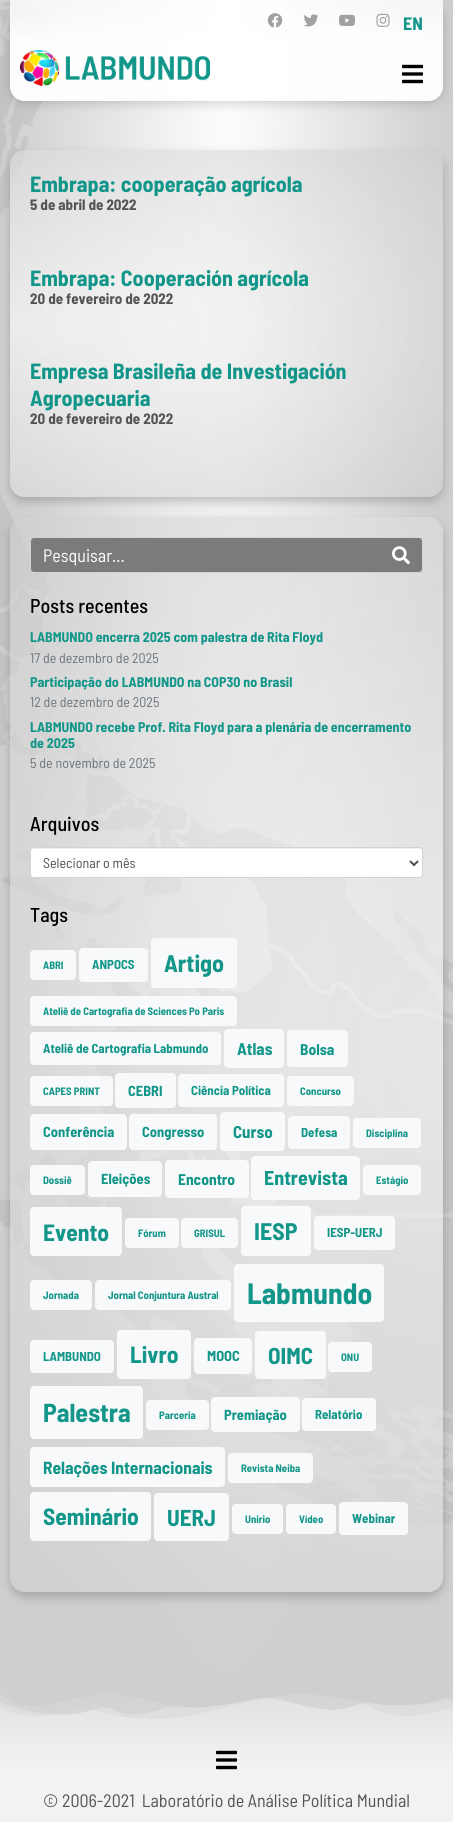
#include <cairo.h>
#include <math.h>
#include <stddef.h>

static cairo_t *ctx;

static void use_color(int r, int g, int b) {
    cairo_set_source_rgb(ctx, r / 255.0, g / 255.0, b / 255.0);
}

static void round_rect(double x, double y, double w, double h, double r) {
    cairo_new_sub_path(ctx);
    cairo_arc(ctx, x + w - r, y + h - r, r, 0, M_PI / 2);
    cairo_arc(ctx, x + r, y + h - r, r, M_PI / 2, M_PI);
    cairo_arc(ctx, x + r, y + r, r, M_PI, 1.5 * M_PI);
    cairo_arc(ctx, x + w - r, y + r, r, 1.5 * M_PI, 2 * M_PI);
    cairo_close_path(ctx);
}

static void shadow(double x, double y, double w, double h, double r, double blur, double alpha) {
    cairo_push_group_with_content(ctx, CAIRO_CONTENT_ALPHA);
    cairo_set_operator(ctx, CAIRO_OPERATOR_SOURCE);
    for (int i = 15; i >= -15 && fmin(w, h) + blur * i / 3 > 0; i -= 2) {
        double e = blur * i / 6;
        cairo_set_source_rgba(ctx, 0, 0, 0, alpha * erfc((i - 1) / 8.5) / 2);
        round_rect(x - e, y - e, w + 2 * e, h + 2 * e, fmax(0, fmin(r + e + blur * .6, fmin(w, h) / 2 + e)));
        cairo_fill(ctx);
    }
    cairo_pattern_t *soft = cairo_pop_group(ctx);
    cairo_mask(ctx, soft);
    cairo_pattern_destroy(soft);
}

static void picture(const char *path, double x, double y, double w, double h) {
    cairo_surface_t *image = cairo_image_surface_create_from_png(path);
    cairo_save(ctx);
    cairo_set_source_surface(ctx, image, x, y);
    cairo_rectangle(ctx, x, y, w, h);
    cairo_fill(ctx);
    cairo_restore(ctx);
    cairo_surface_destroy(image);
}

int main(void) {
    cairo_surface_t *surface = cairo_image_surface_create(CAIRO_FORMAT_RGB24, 453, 1844);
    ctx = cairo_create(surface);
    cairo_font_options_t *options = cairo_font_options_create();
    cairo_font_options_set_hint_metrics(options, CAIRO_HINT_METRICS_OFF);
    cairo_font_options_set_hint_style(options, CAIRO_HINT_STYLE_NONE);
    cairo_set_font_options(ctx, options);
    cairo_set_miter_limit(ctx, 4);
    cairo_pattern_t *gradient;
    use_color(255, 255, 255);
    cairo_paint(ctx);
    gradient = cairo_pattern_create_radial(0, 0, 0, 0, 0, 1);
    cairo_pattern_set_matrix(gradient, &(cairo_matrix_t){1.0 / 320, 0, 0, 1.0 / 2393, -1.0 * 227 / 320, -1.0 * 0 / 2393});
    cairo_pattern_add_color_stop_rgba(gradient, 0, 1, 1, 1, 1);
    cairo_pattern_add_color_stop_rgba(gradient, 0.7, 0.812, 0.812, 0.812, 1);
    cairo_set_source(ctx, gradient);
    cairo_pattern_destroy(gradient);
    cairo_rectangle(ctx, 0, 0, 453, 1692);
    cairo_fill(ctx);
    picture("img7.png", 0, 0, 453, 1527);
    cairo_save(ctx);
    cairo_set_fill_rule(ctx, CAIRO_FILL_RULE_EVEN_ODD);
    cairo_new_path(ctx);
    cairo_move_to(ctx, 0, 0);
    cairo_line_to(ctx, 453, 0);
    cairo_line_to(ctx, 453, 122);
    cairo_line_to(ctx, 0, 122);
    cairo_close_path(ctx);
    cairo_move_to(ctx, 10, 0);
    cairo_line_to(ctx, 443, 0);
    cairo_line_to(ctx, 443, 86);
    cairo_curve_to(ctx, 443, 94.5, 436.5, 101, 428, 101);
    cairo_line_to(ctx, 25, 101);
    cairo_curve_to(ctx, 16.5, 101, 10, 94.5, 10, 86);
    cairo_close_path(ctx);
    cairo_clip(ctx);
    use_color(1, 25, 26);
    shadow(10, 2, 433, 101, 15, 6, 0.2);
    cairo_restore(ctx);
    gradient = cairo_pattern_create_linear(227, 0, 227, 101);
    cairo_pattern_add_color_stop_rgba(gradient, 0.1, 1, 1, 1, 0.8);
    cairo_pattern_add_color_stop_rgba(gradient, 0.4, 1, 1, 1, 0.96);
    cairo_set_source(ctx, gradient);
    cairo_pattern_destroy(gradient);
    cairo_new_path(ctx);
    cairo_move_to(ctx, 10, 0);
    cairo_line_to(ctx, 443, 0);
    cairo_line_to(ctx, 443, 86);
    cairo_curve_to(ctx, 443, 94.5, 436.5, 101, 428, 101);
    cairo_line_to(ctx, 25, 101);
    cairo_curve_to(ctx, 16.5, 101, 10, 94.5, 10, 86);
    cairo_close_path(ctx);
    cairo_fill(ctx);
    picture("img1.png", 267, 13, 16, 15);
    picture("img2.png", 303, 14, 16, 13);
    picture("img3.png", 339, 14, 16, 12);
    picture("img4.png", 376, 13, 14, 14);
    cairo_select_font_face(ctx, "Barlow Semi Condensed", CAIRO_FONT_SLANT_NORMAL, CAIRO_FONT_WEIGHT_BOLD);
    cairo_set_font_size(ctx, 18);
    use_color(17, 150, 137);
    cairo_move_to(ctx, 403, 30);
    cairo_show_text(ctx, "EN");
    picture("img5.png", 20, 50, 190, 36);
    picture("img6.png", 402, 64, 21, 20);
    cairo_save(ctx);
    cairo_set_fill_rule(ctx, CAIRO_FILL_RULE_EVEN_ODD);
    cairo_new_path(ctx);
    cairo_move_to(ctx, 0, 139);
    cairo_line_to(ctx, 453, 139);
    cairo_line_to(ctx, 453, 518);
    cairo_line_to(ctx, 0, 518);
    cairo_close_path(ctx);
    cairo_move_to(ctx, 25, 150);
    cairo_line_to(ctx, 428, 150);
    cairo_curve_to(ctx, 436.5, 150, 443, 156.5, 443, 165);
    cairo_line_to(ctx, 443, 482);
    cairo_curve_to(ctx, 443, 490.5, 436.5, 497, 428, 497);
    cairo_line_to(ctx, 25, 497);
    cairo_curve_to(ctx, 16.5, 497, 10, 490.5, 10, 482);
    cairo_line_to(ctx, 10, 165);
    cairo_curve_to(ctx, 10, 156.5, 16.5, 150, 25, 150);
    cairo_close_path(ctx);
    cairo_clip(ctx);
    use_color(0, 0, 0);
    shadow(10, 155, 433, 347, 15, 5, 0.2);
    cairo_restore(ctx);
    gradient = cairo_pattern_create_radial(0, 0, 0, 0, 0, 1);
    cairo_pattern_set_matrix(gradient, &(cairo_matrix_t){1.0 / 612, 0, 0, 1.0 / 245, -1.0 * 10 / 612, -1.0 * 324 / 245});
    cairo_pattern_add_color_stop_rgba(gradient, 0, 1, 1, 1, 0.59);
    cairo_pattern_add_color_stop_rgba(gradient, 1, 0.812, 0.812, 0.812, 0.62);
    cairo_set_source(ctx, gradient);
    cairo_pattern_destroy(gradient);
    round_rect(10, 150, 433, 347, 15);
    cairo_fill(ctx);
    cairo_set_font_size(ctx, 22);
    use_color(17, 150, 137);
    cairo_move_to(ctx, 30, 192);
    cairo_show_text(ctx, "Embrapa: cooperação agrícola");
    cairo_set_font_size(ctx, 15);
    use_color(84, 84, 84);
    cairo_move_to(ctx, 30, 210);
    cairo_show_text(ctx, "5 de abril de 2022");
    cairo_set_font_size(ctx, 22);
    use_color(17, 150, 137);
    cairo_move_to(ctx, 30, 286);
    cairo_show_text(ctx, "Embrapa: Cooperación agrícola");
    cairo_set_font_size(ctx, 15);
    use_color(84, 84, 84);
    cairo_move_to(ctx, 30, 304);
    cairo_show_text(ctx, "20 de fevereiro de 2022");
    cairo_set_font_size(ctx, 22);
    use_color(17, 150, 137);
    cairo_move_to(ctx, 30, 379);
    cairo_show_text(ctx, "Empresa Brasileña de Investigación");
    cairo_move_to(ctx, 30, 406);
    cairo_show_text(ctx, "Agropecuaria");
    cairo_set_font_size(ctx, 15);
    use_color(84, 84, 84);
    cairo_move_to(ctx, 30, 424);
    cairo_show_text(ctx, "20 de fevereiro de 2022");
    cairo_save(ctx);
    cairo_set_fill_rule(ctx, CAIRO_FILL_RULE_EVEN_ODD);
    cairo_new_path(ctx);
    cairo_move_to(ctx, 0, 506);
    cairo_line_to(ctx, 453, 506);
    cairo_line_to(ctx, 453, 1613);
    cairo_line_to(ctx, 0, 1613);
    cairo_close_path(ctx);
    cairo_move_to(ctx, 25, 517);
    cairo_line_to(ctx, 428, 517);
    cairo_curve_to(ctx, 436.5, 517, 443, 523.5, 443, 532);
    cairo_line_to(ctx, 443, 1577);
    cairo_curve_to(ctx, 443, 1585.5, 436.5, 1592, 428, 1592);
    cairo_line_to(ctx, 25, 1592);
    cairo_curve_to(ctx, 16.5, 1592, 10, 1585.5, 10, 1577);
    cairo_line_to(ctx, 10, 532);
    cairo_curve_to(ctx, 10, 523.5, 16.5, 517, 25, 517);
    cairo_close_path(ctx);
    cairo_clip(ctx);
    use_color(0, 0, 0);
    shadow(10, 522, 433, 1075, 15, 5, 0.2);
    cairo_restore(ctx);
    gradient = cairo_pattern_create_radial(0, 0, 0, 0, 0, 1);
    cairo_pattern_set_matrix(gradient, &(cairo_matrix_t){1.0 / 612, 0, 0, 1.0 / 760, -1.0 * 443 / 612, -1.0 * 1055 / 760});
    cairo_pattern_add_color_stop_rgba(gradient, 0, 1, 1, 1, 0.59);
    cairo_pattern_add_color_stop_rgba(gradient, 1, 0.812, 0.812, 0.812, 0.62);
    cairo_set_source(ctx, gradient);
    cairo_pattern_destroy(gradient);
    round_rect(10, 517, 433, 1075, 15);
    cairo_fill(ctx);
    use_color(123, 123, 123);
    round_rect(30.5, 537.5, 392, 35, 3.5);
    cairo_fill_preserve(ctx);
    use_color(206, 212, 218);
    cairo_set_line_width(ctx, 1);
    cairo_stroke(ctx);
    cairo_select_font_face(ctx, "Barlow Semi Condensed", CAIRO_FONT_SLANT_NORMAL, CAIRO_FONT_WEIGHT_NORMAL);
    cairo_set_font_size(ctx, 18);
    use_color(255, 255, 255);
    cairo_move_to(ctx, 43, 562);
    cairo_show_text(ctx, "Pesquisar...");
    picture("img8.png", 392, 546, 18, 19);
    cairo_select_font_face(ctx, "Barlow Semi Condensed Medium", CAIRO_FONT_SLANT_NORMAL, CAIRO_FONT_WEIGHT_NORMAL);
    cairo_set_font_size(ctx, 20);
    use_color(0, 0, 0);
    cairo_move_to(ctx, 30, 613);
    cairo_show_text(ctx, "Posts recentes");
    cairo_select_font_face(ctx, "Barlow Semi Condensed", CAIRO_FONT_SLANT_NORMAL, CAIRO_FONT_WEIGHT_BOLD);
    cairo_set_font_size(ctx, 14);
    use_color(17, 150, 137);
    cairo_move_to(ctx, 30, 642);
    cairo_show_text(ctx, "LABMUNDO encerra 2025 com palestra de Rita Floyd");
    cairo_select_font_face(ctx, "Barlow Semi Condensed", CAIRO_FONT_SLANT_NORMAL, CAIRO_FONT_WEIGHT_NORMAL);
    use_color(108, 117, 125);
    cairo_move_to(ctx, 30, 663);
    cairo_show_text(ctx, "17 de dezembro de 2025");
    cairo_select_font_face(ctx, "Barlow Semi Condensed", CAIRO_FONT_SLANT_NORMAL, CAIRO_FONT_WEIGHT_BOLD);
    use_color(17, 150, 137);
    cairo_move_to(ctx, 30, 687);
    cairo_show_text(ctx, "Participação do LABMUNDO na COP30 no Brasil");
    cairo_select_font_face(ctx, "Barlow Semi Condensed", CAIRO_FONT_SLANT_NORMAL, CAIRO_FONT_WEIGHT_NORMAL);
    use_color(108, 117, 125);
    cairo_move_to(ctx, 30, 707);
    cairo_show_text(ctx, "12 de dezembro de 2025");
    cairo_select_font_face(ctx, "Barlow Semi Condensed", CAIRO_FONT_SLANT_NORMAL, CAIRO_FONT_WEIGHT_BOLD);
    use_color(17, 150, 137);
    cairo_move_to(ctx, 30, 732);
    cairo_show_text(ctx, "LABMUNDO recebe Prof. Rita Floyd para a plenária de encerramento");
    cairo_move_to(ctx, 30, 748);
    cairo_show_text(ctx, "de 2025");
    cairo_select_font_face(ctx, "Barlow Semi Condensed", CAIRO_FONT_SLANT_NORMAL, CAIRO_FONT_WEIGHT_NORMAL);
    use_color(108, 117, 125);
    cairo_move_to(ctx, 30, 768);
    cairo_show_text(ctx, "5 de novembro de 2025");
    cairo_select_font_face(ctx, "Barlow Semi Condensed Medium", CAIRO_FONT_SLANT_NORMAL, CAIRO_FONT_WEIGHT_NORMAL);
    cairo_set_font_size(ctx, 20);
    use_color(0, 0, 0);
    cairo_move_to(ctx, 30, 831);
    cairo_show_text(ctx, "Arquivos");
    use_color(255, 255, 255);
    round_rect(31, 848, 391, 29, 2);
    cairo_fill(ctx);
    cairo_set_source_rgba(ctx, 0, 0, 0, 0.07);
    cairo_new_path(ctx);
    cairo_move_to(ctx, 33, 849);
    cairo_line_to(ctx, 420, 849);
    cairo_curve_to(ctx, 421, 849, 422, 850, 422, 851);
    cairo_curve_to(ctx, 422, 850, 422, 849, 421, 848);
    cairo_line_to(ctx, 33, 848);
    cairo_line_to(ctx, 31, 849);
    cairo_line_to(ctx, 31, 851);
    cairo_curve_to(ctx, 31, 850, 32, 849, 33, 849);
    cairo_close_path(ctx);
    cairo_fill(ctx);
    round_rect(30.5, 847.5, 392, 30, 2.5);
    use_color(206, 212, 218);
    cairo_stroke(ctx);
    cairo_new_path(ctx);
    cairo_move_to(ctx, 410, 861);
    cairo_line_to(ctx, 414, 865);
    cairo_line_to(ctx, 418, 861);
    use_color(73, 80, 87);
    cairo_set_line_width(ctx, 2);
    cairo_stroke(ctx);
    cairo_select_font_face(ctx, "Barlow Semi Condensed", CAIRO_FONT_SLANT_NORMAL, CAIRO_FONT_WEIGHT_NORMAL);
    cairo_set_font_size(ctx, 14);
    cairo_move_to(ctx, 43, 868);
    cairo_show_text(ctx, "Selecionar o mês");
    cairo_select_font_face(ctx, "Barlow Semi Condensed Medium", CAIRO_FONT_SLANT_NORMAL, CAIRO_FONT_WEIGHT_NORMAL);
    cairo_set_font_size(ctx, 20);
    use_color(0, 0, 0);
    cairo_move_to(ctx, 30, 922);
    cairo_show_text(ctx, "Tags");
    use_color(248, 249, 250);
    round_rect(30.5, 950.5, 45, 29, 3.5);
    cairo_fill_preserve(ctx);
    cairo_set_line_width(ctx, 1);
    cairo_stroke(ctx);
    cairo_select_font_face(ctx, "Barlow Semi Condensed", CAIRO_FONT_SLANT_NORMAL, CAIRO_FONT_WEIGHT_BOLD);
    cairo_set_font_size(ctx, 10.7);
    use_color(17, 150, 137);
    cairo_move_to(ctx, 43, 969);
    cairo_show_text(ctx, "ABRI");
    use_color(248, 249, 250);
    round_rect(79.5, 948.5, 68, 33, 3.5);
    cairo_fill_preserve(ctx);
    cairo_stroke(ctx);
    cairo_set_font_size(ctx, 12.9);
    use_color(17, 150, 137);
    cairo_move_to(ctx, 92, 969);
    cairo_show_text(ctx, "ANPOCS");
    use_color(248, 249, 250);
    round_rect(151.5, 938.5, 85, 49, 3.5);
    cairo_fill_preserve(ctx);
    cairo_stroke(ctx);
    cairo_set_font_size(ctx, 24);
    use_color(17, 150, 137);
    cairo_move_to(ctx, 164, 972);
    cairo_show_text(ctx, "Artigo");
    use_color(248, 249, 250);
    round_rect(30.5, 996.5, 206, 29, 3.5);
    cairo_fill_preserve(ctx);
    cairo_stroke(ctx);
    cairo_set_font_size(ctx, 10.7);
    use_color(17, 150, 137);
    cairo_move_to(ctx, 43, 1015);
    cairo_show_text(ctx, "Ateliê de Cartografia de Sciences Po Paris");
    use_color(248, 249, 250);
    round_rect(30.5, 1032.5, 190, 32, 3.5);
    cairo_fill_preserve(ctx);
    cairo_stroke(ctx);
    cairo_set_font_size(ctx, 12.9);
    use_color(17, 150, 137);
    cairo_move_to(ctx, 43, 1053);
    cairo_show_text(ctx, "Ateliê de Cartografia Labmundo");
    use_color(248, 249, 250);
    round_rect(224.5, 1029.5, 59, 38, 3.5);
    cairo_fill_preserve(ctx);
    cairo_stroke(ctx);
    cairo_set_font_size(ctx, 17);
    use_color(17, 150, 137);
    cairo_move_to(ctx, 237, 1055);
    cairo_show_text(ctx, "Atlas");
    use_color(248, 249, 250);
    round_rect(287.5, 1030.5, 60, 36, 3.5);
    cairo_fill_preserve(ctx);
    cairo_stroke(ctx);
    cairo_set_font_size(ctx, 15.5);
    use_color(17, 150, 137);
    cairo_move_to(ctx, 300, 1055);
    cairo_show_text(ctx, "Bolsa");
    use_color(248, 249, 250);
    round_rect(30.5, 1076.5, 82, 29, 3.5);
    cairo_fill_preserve(ctx);
    cairo_stroke(ctx);
    cairo_set_font_size(ctx, 10.7);
    use_color(17, 150, 137);
    cairo_move_to(ctx, 43, 1095);
    cairo_show_text(ctx, "CAPES PRINT");
    use_color(248, 249, 250);
    round_rect(115.5, 1073.5, 60, 34, 3.5);
    cairo_fill_preserve(ctx);
    cairo_stroke(ctx);
    cairo_set_font_size(ctx, 14.5);
    use_color(17, 150, 137);
    cairo_move_to(ctx, 128, 1096);
    cairo_show_text(ctx, "CEBRI");
    use_color(248, 249, 250);
    round_rect(178.5, 1074.5, 105, 32, 3.5);
    cairo_fill_preserve(ctx);
    cairo_stroke(ctx);
    cairo_set_font_size(ctx, 12.9);
    use_color(17, 150, 137);
    cairo_move_to(ctx, 191, 1095);
    cairo_show_text(ctx, "Ciência Política");
    use_color(248, 249, 250);
    round_rect(287.5, 1076.5, 66, 29, 3.5);
    cairo_fill_preserve(ctx);
    cairo_stroke(ctx);
    cairo_set_font_size(ctx, 10.7);
    use_color(17, 150, 137);
    cairo_move_to(ctx, 300, 1095);
    cairo_show_text(ctx, "Concurso");
    use_color(248, 249, 250);
    round_rect(30.5, 1114.5, 96, 35, 3.5);
    cairo_fill_preserve(ctx);
    cairo_stroke(ctx);
    cairo_set_font_size(ctx, 14.5);
    use_color(17, 150, 137);
    cairo_move_to(ctx, 43, 1137);
    cairo_show_text(ctx, "Conferência");
    use_color(248, 249, 250);
    round_rect(129.5, 1114.5, 87, 35, 3.5);
    cairo_fill_preserve(ctx);
    cairo_stroke(ctx);
    use_color(17, 150, 137);
    cairo_move_to(ctx, 142, 1137);
    cairo_show_text(ctx, "Congresso");
    use_color(248, 249, 250);
    round_rect(220.5, 1112.5, 64, 38, 3.5);
    cairo_fill_preserve(ctx);
    cairo_stroke(ctx);
    cairo_set_font_size(ctx, 17);
    use_color(17, 150, 137);
    cairo_move_to(ctx, 233, 1138);
    cairo_show_text(ctx, "Curso");
    use_color(248, 249, 250);
    round_rect(288.5, 1116.5, 61, 32, 3.5);
    cairo_fill_preserve(ctx);
    cairo_stroke(ctx);
    cairo_set_font_size(ctx, 12.9);
    use_color(17, 150, 137);
    cairo_move_to(ctx, 301, 1137);
    cairo_show_text(ctx, "Defesa");
    use_color(248, 249, 250);
    round_rect(353.5, 1118.5, 67, 29, 3.5);
    cairo_fill_preserve(ctx);
    cairo_stroke(ctx);
    cairo_set_font_size(ctx, 10.7);
    use_color(17, 150, 137);
    cairo_move_to(ctx, 366, 1137);
    cairo_show_text(ctx, "Disciplina");
    use_color(248, 249, 250);
    round_rect(30.5, 1165.5, 54, 29, 3.5);
    cairo_fill_preserve(ctx);
    cairo_stroke(ctx);
    use_color(17, 150, 137);
    cairo_move_to(ctx, 43, 1184);
    cairo_show_text(ctx, "Dossiê");
    use_color(248, 249, 250);
    round_rect(88.5, 1161.5, 73, 35, 3.5);
    cairo_fill_preserve(ctx);
    cairo_stroke(ctx);
    cairo_set_font_size(ctx, 14.5);
    use_color(17, 150, 137);
    cairo_move_to(ctx, 101, 1184);
    cairo_show_text(ctx, "Eleições");
    use_color(248, 249, 250);
    round_rect(165.5, 1160.5, 83, 37, 3.5);
    cairo_fill_preserve(ctx);
    cairo_stroke(ctx);
    cairo_set_font_size(ctx, 15.5);
    use_color(17, 150, 137);
    cairo_move_to(ctx, 178, 1185);
    cairo_show_text(ctx, "Encontro");
    use_color(248, 249, 250);
    round_rect(251.5, 1156.5, 108, 43, 3.5);
    cairo_fill_preserve(ctx);
    cairo_stroke(ctx);
    cairo_set_font_size(ctx, 20);
    use_color(17, 150, 137);
    cairo_move_to(ctx, 264, 1185);
    cairo_show_text(ctx, "Entrevista");
    use_color(248, 249, 250);
    round_rect(363.5, 1165.5, 57, 29, 3.5);
    cairo_fill_preserve(ctx);
    cairo_stroke(ctx);
    cairo_set_font_size(ctx, 10.7);
    use_color(17, 150, 137);
    cairo_move_to(ctx, 376, 1184);
    cairo_show_text(ctx, "Estágio");
    use_color(248, 249, 250);
    round_rect(30.5, 1207.5, 91, 48, 3.5);
    cairo_fill_preserve(ctx);
    cairo_stroke(ctx);
    cairo_set_font_size(ctx, 23.5);
    use_color(17, 150, 137);
    cairo_move_to(ctx, 43, 1241);
    cairo_show_text(ctx, "Evento");
    use_color(248, 249, 250);
    round_rect(125.5, 1218.5, 53, 29, 3.5);
    cairo_fill_preserve(ctx);
    cairo_stroke(ctx);
    cairo_set_font_size(ctx, 10.7);
    use_color(17, 150, 137);
    cairo_move_to(ctx, 138, 1237);
    cairo_show_text(ctx, "Fórum");
    use_color(248, 249, 250);
    round_rect(181.5, 1218.5, 56, 29, 3.5);
    cairo_fill_preserve(ctx);
    cairo_stroke(ctx);
    use_color(17, 150, 137);
    cairo_move_to(ctx, 194, 1237);
    cairo_show_text(ctx, "GRISUL");
    use_color(248, 249, 250);
    round_rect(241.5, 1206.5, 69, 49, 3.5);
    cairo_fill_preserve(ctx);
    cairo_stroke(ctx);
    cairo_set_font_size(ctx, 24);
    use_color(17, 150, 137);
    cairo_move_to(ctx, 254, 1240);
    cairo_show_text(ctx, "IESP");
    use_color(248, 249, 250);
    round_rect(314.5, 1216.5, 80, 33, 3.5);
    cairo_fill_preserve(ctx);
    cairo_stroke(ctx);
    cairo_set_font_size(ctx, 12.9);
    use_color(17, 150, 137);
    cairo_move_to(ctx, 327, 1237);
    cairo_show_text(ctx, "IESP-UERJ");
    use_color(248, 249, 250);
    round_rect(30.5, 1280.5, 61, 29, 3.5);
    cairo_fill_preserve(ctx);
    cairo_stroke(ctx);
    cairo_set_font_size(ctx, 10.7);
    use_color(17, 150, 137);
    cairo_move_to(ctx, 43, 1299);
    cairo_show_text(ctx, "Jornada");
    use_color(248, 249, 250);
    round_rect(95.5, 1280.5, 135, 29, 3.5);
    cairo_fill_preserve(ctx);
    cairo_stroke(ctx);
    use_color(17, 150, 137);
    cairo_move_to(ctx, 108, 1299);
    cairo_show_text(ctx, "Jornal Conjuntura Austral");
    use_color(248, 249, 250);
    round_rect(234.5, 1264.5, 149, 57, 3.5);
    cairo_fill_preserve(ctx);
    cairo_stroke(ctx);
    cairo_set_font_size(ctx, 29.5);
    use_color(17, 150, 137);
    cairo_move_to(ctx, 247, 1304);
    cairo_show_text(ctx, "Labmundo");
    use_color(248, 249, 250);
    round_rect(30.5, 1340.5, 83, 32, 3.5);
    cairo_fill_preserve(ctx);
    cairo_stroke(ctx);
    cairo_set_font_size(ctx, 12.9);
    use_color(17, 150, 137);
    cairo_move_to(ctx, 43, 1361);
    cairo_show_text(ctx, "LAMBUNDO");
    use_color(248, 249, 250);
    round_rect(117.5, 1330.5, 73, 48, 3.5);
    cairo_fill_preserve(ctx);
    cairo_stroke(ctx);
    cairo_set_font_size(ctx, 23.5);
    use_color(17, 150, 137);
    cairo_move_to(ctx, 130, 1363);
    cairo_show_text(ctx, "Livro");
    use_color(248, 249, 250);
    round_rect(194.5, 1338.5, 57, 35, 3.5);
    cairo_fill_preserve(ctx);
    cairo_stroke(ctx);
    cairo_set_font_size(ctx, 14.5);
    use_color(17, 150, 137);
    cairo_move_to(ctx, 207, 1361);
    cairo_show_text(ctx, "MOOC");
    use_color(248, 249, 250);
    round_rect(255.5, 1331.5, 70, 47, 3.5);
    cairo_fill_preserve(ctx);
    cairo_stroke(ctx);
    cairo_set_font_size(ctx, 23);
    use_color(17, 150, 137);
    cairo_move_to(ctx, 268, 1364);
    cairo_show_text(ctx, "OIMC");
    use_color(248, 249, 250);
    round_rect(328.5, 1342.5, 43, 29, 3.5);
    cairo_fill_preserve(ctx);
    cairo_stroke(ctx);
    cairo_set_font_size(ctx, 10.7);
    use_color(17, 150, 137);
    cairo_move_to(ctx, 341, 1361);
    cairo_show_text(ctx, "ONU");
    use_color(248, 249, 250);
    round_rect(30.5, 1386.5, 112, 52, 3.5);
    cairo_fill_preserve(ctx);
    cairo_stroke(ctx);
    cairo_set_font_size(ctx, 26);
    use_color(17, 150, 137);
    cairo_move_to(ctx, 43, 1422);
    cairo_show_text(ctx, "Palestra");
    use_color(248, 249, 250);
    round_rect(146.5, 1400.5, 62, 29, 3.5);
    cairo_fill_preserve(ctx);
    cairo_stroke(ctx);
    cairo_set_font_size(ctx, 10.7);
    use_color(17, 150, 137);
    cairo_move_to(ctx, 159, 1419);
    cairo_show_text(ctx, "Parceria");
    use_color(248, 249, 250);
    round_rect(211.5, 1397.5, 88, 34, 3.5);
    cairo_fill_preserve(ctx);
    cairo_stroke(ctx);
    cairo_set_font_size(ctx, 14.5);
    use_color(17, 150, 137);
    cairo_move_to(ctx, 224, 1420);
    cairo_show_text(ctx, "Premiação");
    use_color(248, 249, 250);
    round_rect(302.5, 1398.5, 73, 32, 3.5);
    cairo_fill_preserve(ctx);
    cairo_stroke(ctx);
    cairo_set_font_size(ctx, 12.9);
    use_color(17, 150, 137);
    cairo_move_to(ctx, 315, 1419);
    cairo_show_text(ctx, "Relatório");
    use_color(248, 249, 250);
    round_rect(30.5, 1447.5, 194, 39, 3.5);
    cairo_fill_preserve(ctx);
    cairo_stroke(ctx);
    cairo_set_font_size(ctx, 17.5);
    use_color(17, 150, 137);
    cairo_move_to(ctx, 43, 1474);
    cairo_show_text(ctx, "Relações Internacionais");
    use_color(248, 249, 250);
    round_rect(228.5, 1453.5, 84, 29, 3.5);
    cairo_fill_preserve(ctx);
    cairo_stroke(ctx);
    cairo_set_font_size(ctx, 10.7);
    use_color(17, 150, 137);
    cairo_move_to(ctx, 241, 1472);
    cairo_show_text(ctx, "Revista Neiba");
    use_color(248, 249, 250);
    round_rect(30.5, 1492.5, 120, 48, 3.5);
    cairo_fill_preserve(ctx);
    cairo_stroke(ctx);
    cairo_set_font_size(ctx, 23.5);
    use_color(17, 150, 137);
    cairo_move_to(ctx, 43, 1525);
    cairo_show_text(ctx, "Seminário");
    use_color(248, 249, 250);
    round_rect(154.5, 1493.5, 74, 47, 3.5);
    cairo_fill_preserve(ctx);
    cairo_stroke(ctx);
    cairo_set_font_size(ctx, 23);
    use_color(17, 150, 137);
    cairo_move_to(ctx, 167, 1526);
    cairo_show_text(ctx, "UERJ");
    use_color(248, 249, 250);
    round_rect(232.5, 1504.5, 50, 29, 3.5);
    cairo_fill_preserve(ctx);
    cairo_stroke(ctx);
    cairo_set_font_size(ctx, 10.7);
    use_color(17, 150, 137);
    cairo_move_to(ctx, 245, 1523);
    cairo_show_text(ctx, "Unirio");
    use_color(248, 249, 250);
    round_rect(286.5, 1504.5, 49, 29, 3.5);
    cairo_fill_preserve(ctx);
    cairo_stroke(ctx);
    use_color(17, 150, 137);
    cairo_move_to(ctx, 299, 1523);
    cairo_show_text(ctx, "Vídeo");
    use_color(248, 249, 250);
    round_rect(339.5, 1502.5, 68, 32, 3.5);
    cairo_fill_preserve(ctx);
    cairo_stroke(ctx);
    cairo_set_font_size(ctx, 12.9);
    use_color(17, 150, 137);
    cairo_move_to(ctx, 352, 1523);
    cairo_show_text(ctx, "Webinar");
    gradient = cairo_pattern_create_linear(227, 1692, 227, 1782);
    cairo_pattern_add_color_stop_rgba(gradient, 0, 0.882, 0.882, 0.882, 1);
    cairo_pattern_add_color_stop_rgba(gradient, 0.84, 0.949, 0.949, 0.949, 1);
    cairo_set_source(ctx, gradient);
    cairo_pattern_destroy(gradient);
    cairo_rectangle(ctx, 0, 1692, 453, 90);
    cairo_fill(ctx);
    picture("img9.png", 0, 1692, 453, 27);
    picture("img10.png", 216, 1750, 21, 20);
    use_color(242, 242, 242);
    cairo_rectangle(ctx, 0, 1782, 453, 40);
    cairo_fill(ctx);
    cairo_select_font_face(ctx, "Barlow Semi Condensed", CAIRO_FONT_SLANT_NORMAL, CAIRO_FONT_WEIGHT_NORMAL);
    cairo_set_font_size(ctx, 18);
    use_color(84, 84, 84);
    cairo_move_to(ctx, 43, 1807);
    cairo_show_text(ctx, "© 2006-2021  Laboratório de Análise Política Mundial");
    cairo_surface_write_to_png(surface, "result.png");
    cairo_font_options_destroy(options);
    cairo_destroy(ctx);
    cairo_surface_destroy(surface);
    return 0;
}
